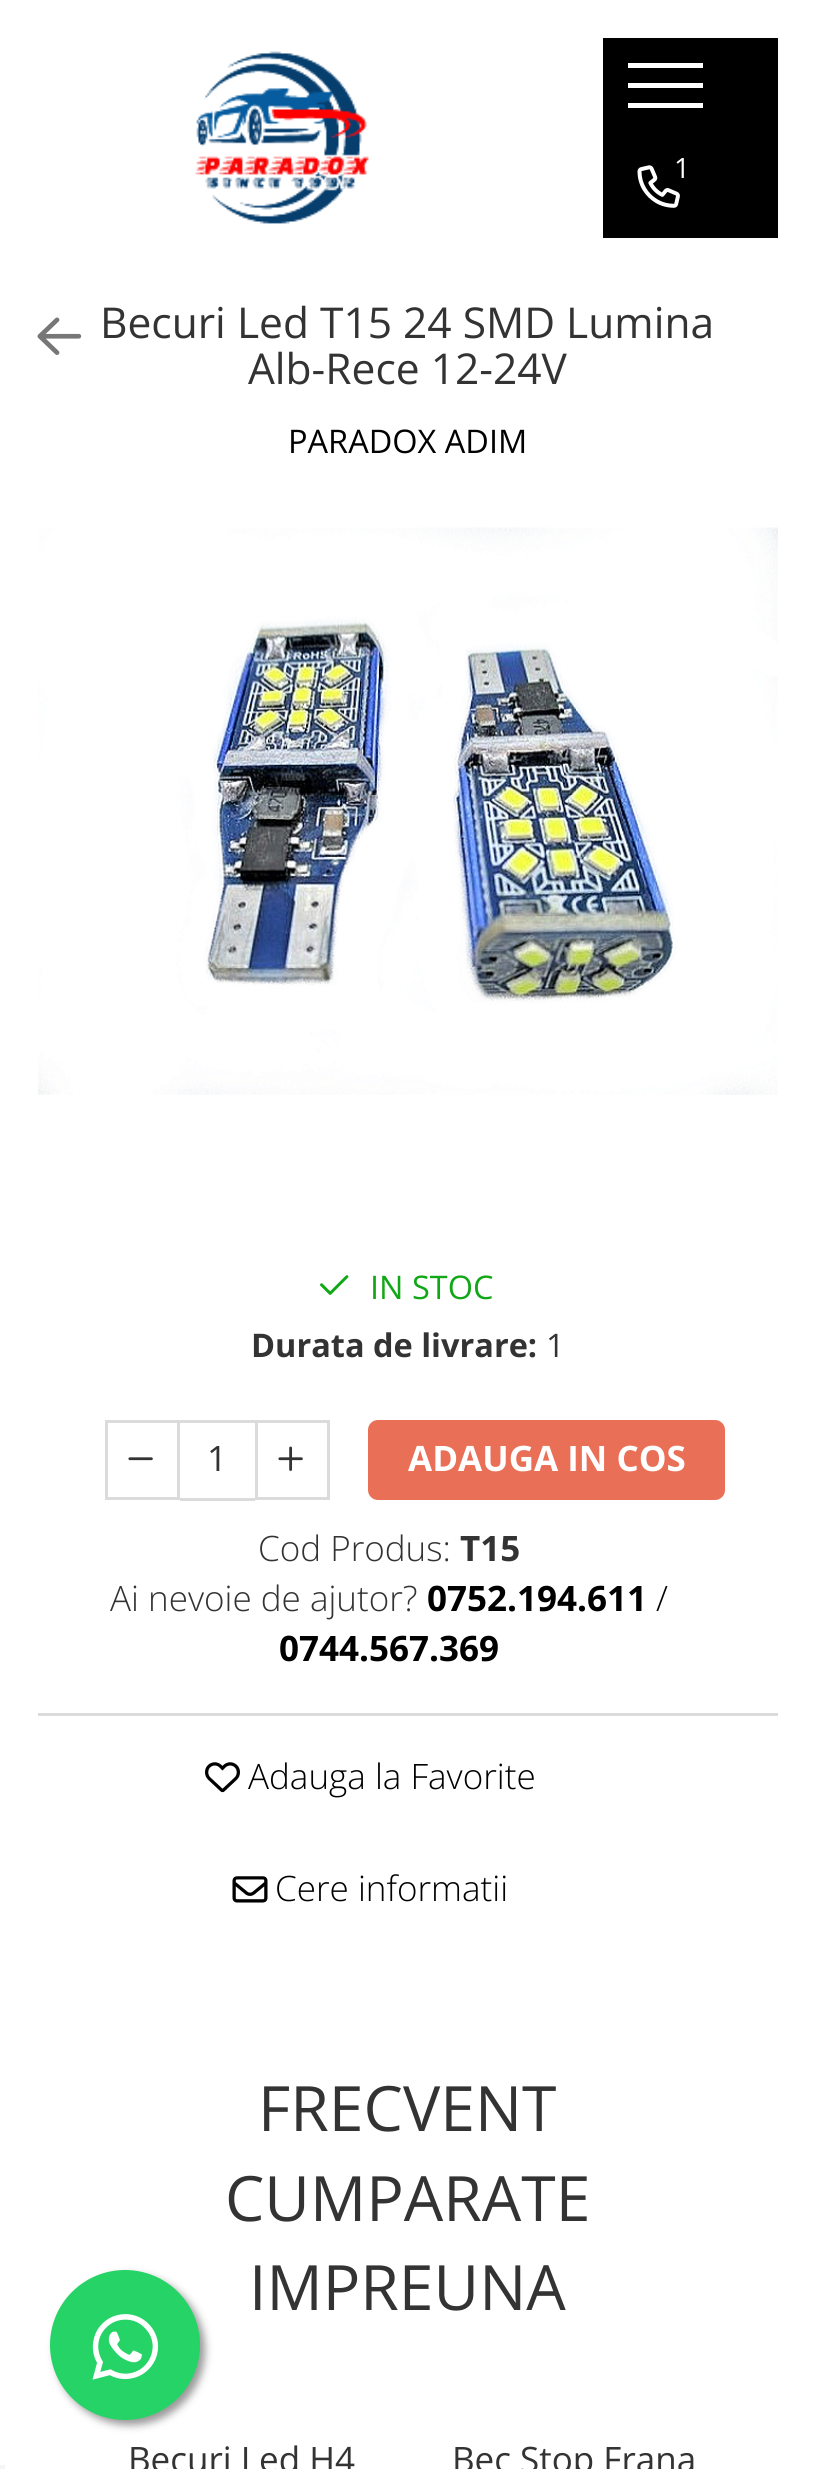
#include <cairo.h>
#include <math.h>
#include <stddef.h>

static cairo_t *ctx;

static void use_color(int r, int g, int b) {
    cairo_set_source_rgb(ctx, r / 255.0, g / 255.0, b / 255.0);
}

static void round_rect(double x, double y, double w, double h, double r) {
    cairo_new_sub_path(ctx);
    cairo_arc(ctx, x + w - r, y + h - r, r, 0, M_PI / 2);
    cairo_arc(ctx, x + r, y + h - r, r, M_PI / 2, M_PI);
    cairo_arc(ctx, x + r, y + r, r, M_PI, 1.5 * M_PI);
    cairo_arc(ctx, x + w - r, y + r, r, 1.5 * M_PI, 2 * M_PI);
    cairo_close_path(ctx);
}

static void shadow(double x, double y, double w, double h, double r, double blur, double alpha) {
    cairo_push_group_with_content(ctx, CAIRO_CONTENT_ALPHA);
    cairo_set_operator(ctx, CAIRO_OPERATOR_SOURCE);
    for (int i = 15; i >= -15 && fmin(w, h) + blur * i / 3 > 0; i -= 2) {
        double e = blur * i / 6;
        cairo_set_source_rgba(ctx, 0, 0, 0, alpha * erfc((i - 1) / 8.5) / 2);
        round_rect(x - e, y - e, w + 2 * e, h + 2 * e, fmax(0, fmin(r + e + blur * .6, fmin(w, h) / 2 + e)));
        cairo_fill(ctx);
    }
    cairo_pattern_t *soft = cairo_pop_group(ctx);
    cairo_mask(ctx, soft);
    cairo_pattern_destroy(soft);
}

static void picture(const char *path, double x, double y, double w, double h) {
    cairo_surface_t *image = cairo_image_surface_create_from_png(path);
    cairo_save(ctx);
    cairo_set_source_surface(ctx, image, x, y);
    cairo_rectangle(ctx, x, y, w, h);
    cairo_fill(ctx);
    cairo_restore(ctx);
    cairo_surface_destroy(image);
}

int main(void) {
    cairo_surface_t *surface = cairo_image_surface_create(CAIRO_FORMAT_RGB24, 814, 2469);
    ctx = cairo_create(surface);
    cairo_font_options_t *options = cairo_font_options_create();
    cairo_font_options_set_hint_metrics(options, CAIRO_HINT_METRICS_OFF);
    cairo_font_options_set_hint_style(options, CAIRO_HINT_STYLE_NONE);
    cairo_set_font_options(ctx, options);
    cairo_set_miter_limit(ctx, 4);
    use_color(255, 255, 255);
    cairo_paint(ctx);
    picture("img1.png", 195, 51, 174, 173);
    use_color(0, 0, 0);
    cairo_rectangle(ctx, 603, 38, 175, 200);
    cairo_fill(ctx);
    use_color(255, 255, 255);
    cairo_rectangle(ctx, 628, 83, 75, 5);
    cairo_fill(ctx);
    cairo_rectangle(ctx, 628, 63, 75, 5);
    cairo_fill(ctx);
    cairo_rectangle(ctx, 628, 103, 75, 5);
    cairo_fill(ctx);
    picture("img2.png", 637, 165, 43, 43);
    cairo_select_font_face(ctx, "Open Sans", CAIRO_FONT_SLANT_NORMAL, CAIRO_FONT_WEIGHT_NORMAL);
    cairo_set_font_size(ctx, 28);
    cairo_move_to(ctx, 674, 178);
    cairo_show_text(ctx, "1");
    picture("img3.png", 37, 317, 45, 38);
    cairo_set_font_size(ctx, 42.5);
    use_color(51, 51, 51);
    cairo_move_to(ctx, 100, 338);
    cairo_show_text(ctx, "Becuri Led T15 24 SMD Lumina");
    cairo_move_to(ctx, 248, 384);
    cairo_show_text(ctx, "Alb-Rece 12-24V");
    cairo_set_font_size(ctx, 32.5);
    use_color(0, 0, 0);
    cairo_move_to(ctx, 288, 453);
    cairo_show_text(ctx, "PARADOX ADIM");
    picture("img4.png", 38, 527, 740, 568);
    picture("img5.png", 320, 1275, 29, 20);
    use_color(17, 167, 23);
    cairo_move_to(ctx, 370, 1299);
    cairo_show_text(ctx, "IN STOC");
    cairo_select_font_face(ctx, "Open Sans", CAIRO_FONT_SLANT_NORMAL, CAIRO_FONT_WEIGHT_BOLD);
    use_color(51, 51, 51);
    cairo_move_to(ctx, 251, 1357);
    cairo_show_text(ctx, "Durata de livrare:");
    cairo_select_font_face(ctx, "Open Sans", CAIRO_FONT_SLANT_NORMAL, CAIRO_FONT_WEIGHT_NORMAL);
    cairo_move_to(ctx, 546, 1357);
    cairo_show_text(ctx, "1");
    cairo_rectangle(ctx, 106.5, 1421.5, 72, 77);
    use_color(219, 219, 219);
    cairo_set_line_width(ctx, 3);
    cairo_stroke(ctx);
    picture("img6.png", 128, 1457, 25, 4);
    cairo_rectangle(ctx, 180, 1420, 75, 3);
    cairo_fill(ctx);
    cairo_rectangle(ctx, 180, 1498, 75, 3);
    cairo_fill(ctx);
    cairo_set_font_size(ctx, 35);
    use_color(51, 51, 51);
    cairo_move_to(ctx, 207, 1471);
    cairo_show_text(ctx, "1");
    cairo_rectangle(ctx, 256.5, 1421.5, 72, 77);
    use_color(219, 219, 219);
    cairo_stroke(ctx);
    picture("img7.png", 278, 1446, 25, 25);
    use_color(233, 111, 86);
    round_rect(368, 1420, 357, 80, 10);
    cairo_fill(ctx);
    cairo_select_font_face(ctx, "Open Sans", CAIRO_FONT_SLANT_NORMAL, CAIRO_FONT_WEIGHT_BOLD);
    use_color(255, 255, 255);
    cairo_move_to(ctx, 408, 1471);
    cairo_show_text(ctx, "ADAUGA IN COS");
    cairo_select_font_face(ctx, "Open Sans Light", CAIRO_FONT_SLANT_NORMAL, CAIRO_FONT_WEIGHT_NORMAL);
    use_color(51, 51, 51);
    cairo_move_to(ctx, 258, 1561);
    cairo_show_text(ctx, "Cod Produs:");
    cairo_select_font_face(ctx, "Open Sans", CAIRO_FONT_SLANT_NORMAL, CAIRO_FONT_WEIGHT_BOLD);
    cairo_move_to(ctx, 460, 1561);
    cairo_show_text(ctx, "T15");
    cairo_select_font_face(ctx, "Open Sans Light", CAIRO_FONT_SLANT_NORMAL, CAIRO_FONT_WEIGHT_NORMAL);
    cairo_move_to(ctx, 110, 1611);
    cairo_show_text(ctx, "Ai nevoie de ajutor?");
    cairo_select_font_face(ctx, "Open Sans", CAIRO_FONT_SLANT_NORMAL, CAIRO_FONT_WEIGHT_BOLD);
    use_color(0, 0, 0);
    cairo_move_to(ctx, 427, 1611);
    cairo_show_text(ctx, "0752.194.611");
    cairo_select_font_face(ctx, "Open Sans Light", CAIRO_FONT_SLANT_NORMAL, CAIRO_FONT_WEIGHT_NORMAL);
    cairo_move_to(ctx, 656, 1611);
    cairo_show_text(ctx, "/");
    cairo_select_font_face(ctx, "Open Sans", CAIRO_FONT_SLANT_NORMAL, CAIRO_FONT_WEIGHT_BOLD);
    cairo_move_to(ctx, 279, 1661);
    cairo_show_text(ctx, "0744.567.369");
    use_color(219, 219, 219);
    cairo_rectangle(ctx, 38, 1713, 740, 3);
    cairo_fill(ctx);
    picture("img8.png", 205, 1762, 35, 31);
    cairo_select_font_face(ctx, "Open Sans Light", CAIRO_FONT_SLANT_NORMAL, CAIRO_FONT_WEIGHT_NORMAL);
    use_color(0, 0, 0);
    cairo_move_to(ctx, 248, 1789);
    cairo_show_text(ctx, "Adauga la Favorite");
    picture("img9.png", 232, 1876, 36, 27);
    cairo_move_to(ctx, 275, 1901);
    cairo_show_text(ctx, "Cere informatii");
    cairo_select_font_face(ctx, "Open Sans", CAIRO_FONT_SLANT_NORMAL, CAIRO_FONT_WEIGHT_NORMAL);
    cairo_set_font_size(ctx, 62.5);
    use_color(51, 51, 51);
    cairo_move_to(ctx, 258, 2131);
    cairo_show_text(ctx, "FRECVENT");
    cairo_move_to(ctx, 225, 2221);
    cairo_show_text(ctx, "CUMPARATE");
    cairo_move_to(ctx, 249, 2310);
    cairo_show_text(ctx, "IMPREUNA");
    cairo_set_font_size(ctx, 35);
    cairo_move_to(ctx, 128, 2472);
    cairo_show_text(ctx, "Becuri Led H4");
    cairo_move_to(ctx, 452, 2472);
    cairo_show_text(ctx, "Bec Stop Frana");
    use_color(153, 153, 153);
    shadow(55, 2275, 150, 150, 75, 4, 1);
    use_color(37, 211, 102);
    cairo_arc(ctx, 125, 2345, 75, 0, 2 * M_PI);
    cairo_fill(ctx);
    picture("img10.png", 92, 2314, 67, 66);
    use_color(245, 245, 245);
    cairo_rectangle(ctx, 0, 2465, 5, 4);
    cairo_fill(ctx);
    cairo_surface_write_to_png(surface, "result.png");
    cairo_font_options_destroy(options);
    cairo_destroy(ctx);
    cairo_surface_destroy(surface);
    return 0;
}
